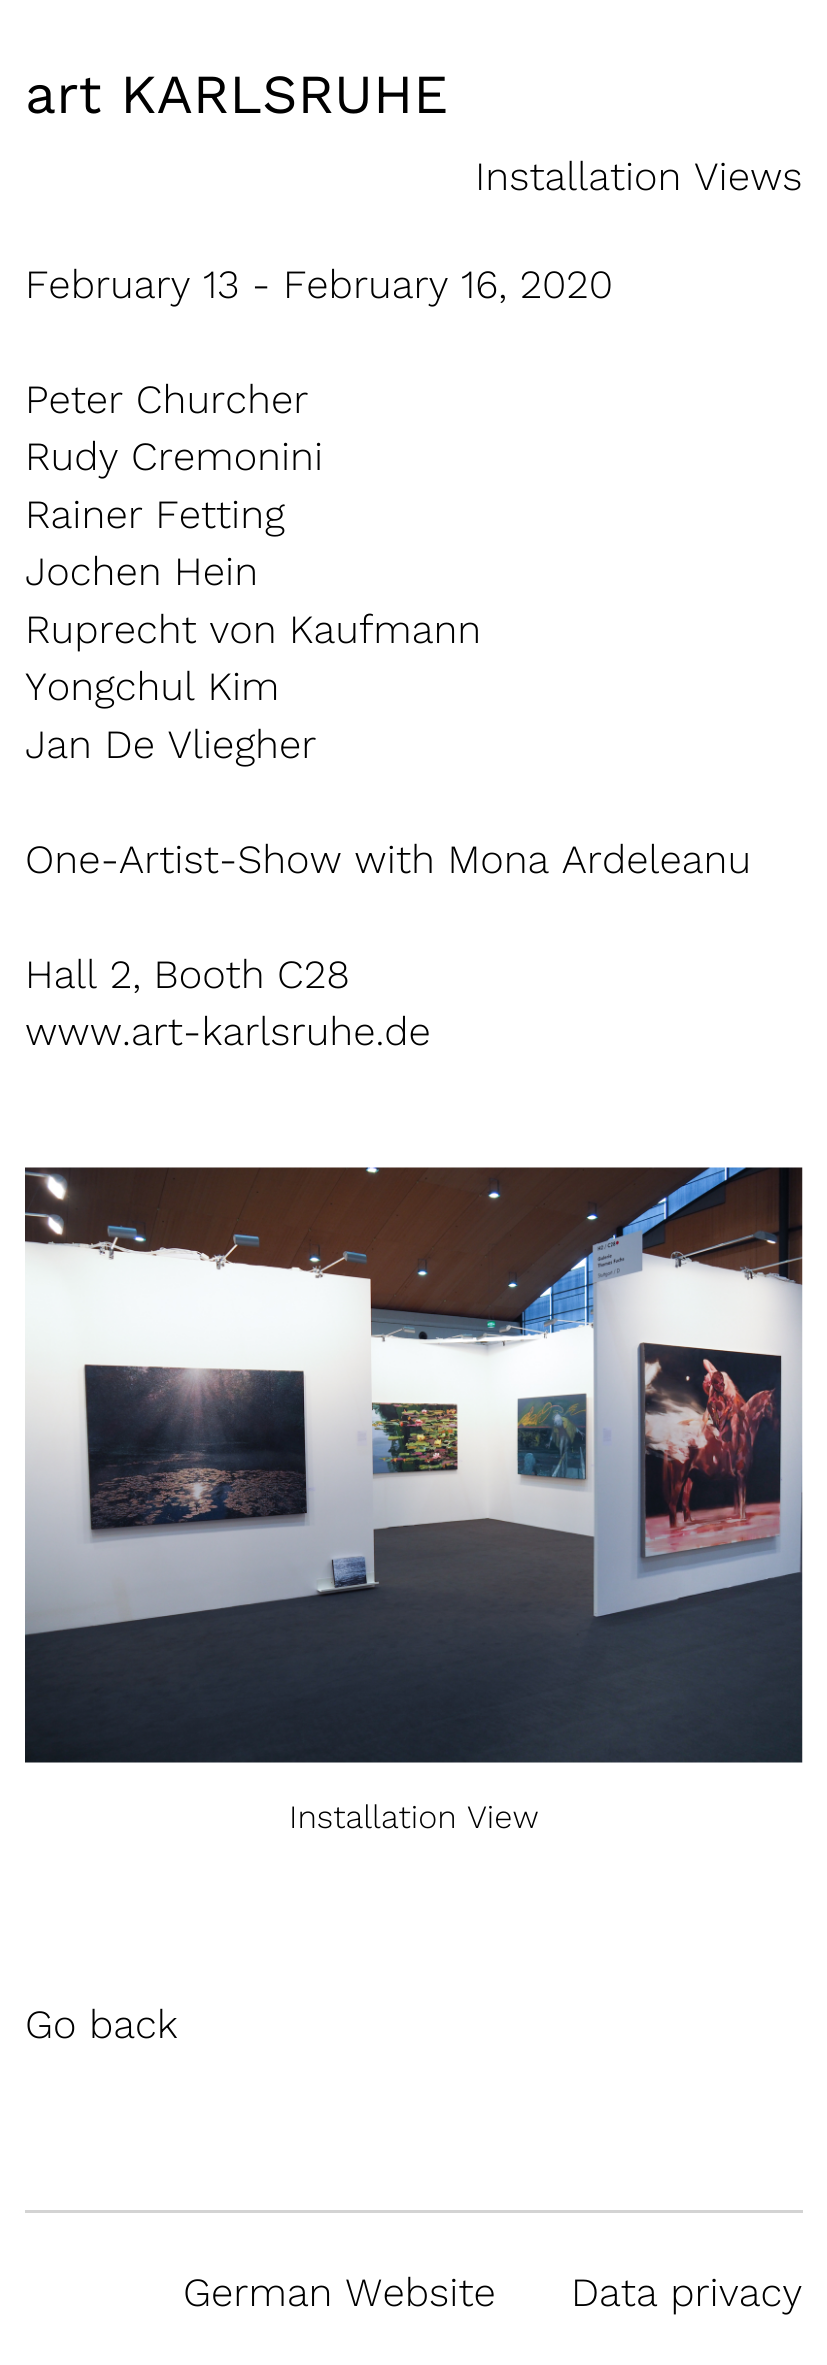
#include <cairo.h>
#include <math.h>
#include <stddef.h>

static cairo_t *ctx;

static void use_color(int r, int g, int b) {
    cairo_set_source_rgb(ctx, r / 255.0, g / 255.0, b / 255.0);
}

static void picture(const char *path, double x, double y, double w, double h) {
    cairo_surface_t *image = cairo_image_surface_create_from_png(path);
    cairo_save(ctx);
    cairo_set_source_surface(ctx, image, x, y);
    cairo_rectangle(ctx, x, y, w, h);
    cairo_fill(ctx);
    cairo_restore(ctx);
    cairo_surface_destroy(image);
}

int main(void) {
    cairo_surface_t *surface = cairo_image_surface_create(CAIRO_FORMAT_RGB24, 827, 2365);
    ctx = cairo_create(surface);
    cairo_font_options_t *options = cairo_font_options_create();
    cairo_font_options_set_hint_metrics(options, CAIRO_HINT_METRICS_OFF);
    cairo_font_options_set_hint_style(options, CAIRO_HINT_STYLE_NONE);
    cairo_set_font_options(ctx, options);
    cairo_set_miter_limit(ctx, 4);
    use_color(255, 255, 255);
    cairo_paint(ctx);
    cairo_select_font_face(ctx, "Work Sans", CAIRO_FONT_SLANT_NORMAL, CAIRO_FONT_WEIGHT_NORMAL);
    cairo_set_font_size(ctx, 55);
    use_color(0, 0, 0);
    cairo_move_to(ctx, 25, 113);
    cairo_show_text(ctx, "art KARLSRUHE");
    cairo_select_font_face(ctx, "Work Sans Light", CAIRO_FONT_SLANT_NORMAL, CAIRO_FONT_WEIGHT_NORMAL);
    cairo_set_font_size(ctx, 40);
    cairo_move_to(ctx, 475, 190);
    cairo_show_text(ctx, "Installation Views");
    cairo_move_to(ctx, 25, 298);
    cairo_show_text(ctx, "February 13 - February 16, 2020");
    cairo_move_to(ctx, 25, 413);
    cairo_show_text(ctx, "Peter Churcher");
    cairo_move_to(ctx, 25, 470);
    cairo_show_text(ctx, "Rudy Cremonini");
    cairo_move_to(ctx, 25, 528);
    cairo_show_text(ctx, "Rainer Fetting");
    cairo_move_to(ctx, 25, 585);
    cairo_show_text(ctx, "Jochen Hein");
    cairo_move_to(ctx, 25, 643);
    cairo_show_text(ctx, "Ruprecht von Kaufmann");
    cairo_move_to(ctx, 25, 700);
    cairo_show_text(ctx, "Yongchul Kim");
    cairo_move_to(ctx, 25, 758);
    cairo_show_text(ctx, "Jan De Vliegher");
    cairo_move_to(ctx, 25, 873);
    cairo_show_text(ctx, "One-Artist-Show with Mona Ardeleanu");
    cairo_move_to(ctx, 25, 988);
    cairo_show_text(ctx, "Hall 2, Booth C28");
    cairo_move_to(ctx, 25, 1045);
    cairo_show_text(ctx, "www.art-karlsruhe.de");
    picture("img1.png", 25, 1167, 778, 596);
    cairo_set_font_size(ctx, 32.5);
    cairo_move_to(ctx, 289, 1828);
    cairo_show_text(ctx, "Installation View");
    cairo_set_font_size(ctx, 40);
    cairo_move_to(ctx, 25, 2038);
    cairo_show_text(ctx, "Go back");
    use_color(211, 211, 211);
    cairo_rectangle(ctx, 25, 2210, 778, 3);
    cairo_fill(ctx);
    use_color(0, 0, 0);
    cairo_move_to(ctx, 183, 2306);
    cairo_show_text(ctx, "German Website");
    cairo_move_to(ctx, 571, 2306);
    cairo_show_text(ctx, "Data privacy");
    cairo_surface_write_to_png(surface, "result.png");
    cairo_font_options_destroy(options);
    cairo_destroy(ctx);
    cairo_surface_destroy(surface);
    return 0;
}
